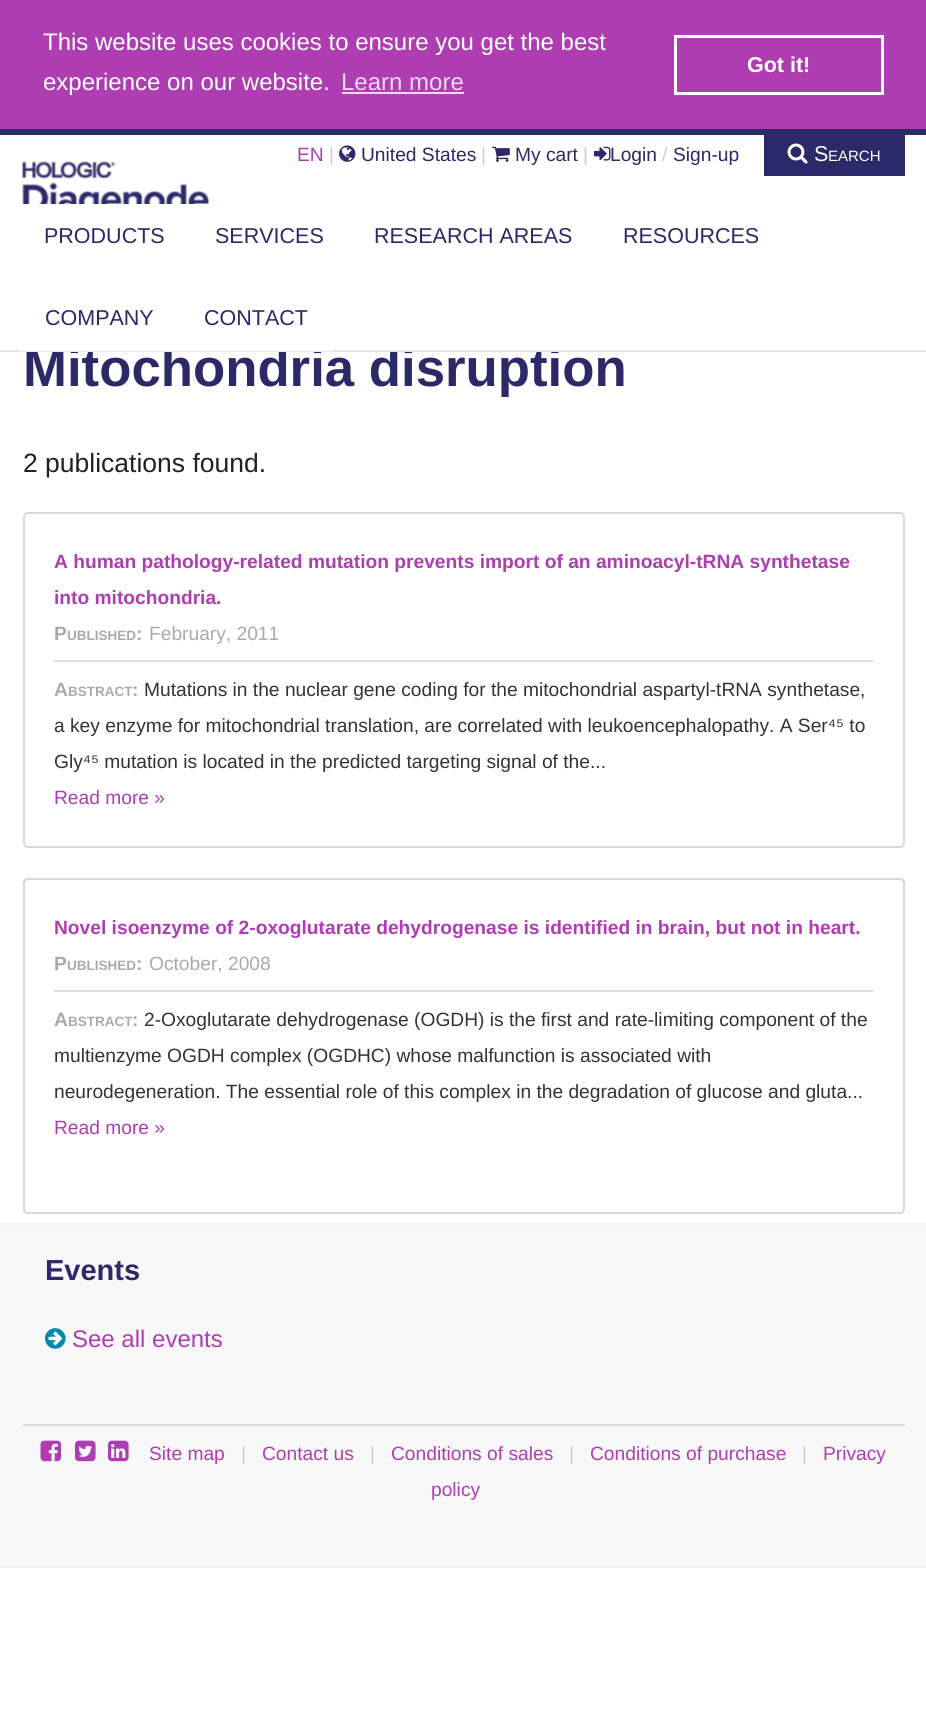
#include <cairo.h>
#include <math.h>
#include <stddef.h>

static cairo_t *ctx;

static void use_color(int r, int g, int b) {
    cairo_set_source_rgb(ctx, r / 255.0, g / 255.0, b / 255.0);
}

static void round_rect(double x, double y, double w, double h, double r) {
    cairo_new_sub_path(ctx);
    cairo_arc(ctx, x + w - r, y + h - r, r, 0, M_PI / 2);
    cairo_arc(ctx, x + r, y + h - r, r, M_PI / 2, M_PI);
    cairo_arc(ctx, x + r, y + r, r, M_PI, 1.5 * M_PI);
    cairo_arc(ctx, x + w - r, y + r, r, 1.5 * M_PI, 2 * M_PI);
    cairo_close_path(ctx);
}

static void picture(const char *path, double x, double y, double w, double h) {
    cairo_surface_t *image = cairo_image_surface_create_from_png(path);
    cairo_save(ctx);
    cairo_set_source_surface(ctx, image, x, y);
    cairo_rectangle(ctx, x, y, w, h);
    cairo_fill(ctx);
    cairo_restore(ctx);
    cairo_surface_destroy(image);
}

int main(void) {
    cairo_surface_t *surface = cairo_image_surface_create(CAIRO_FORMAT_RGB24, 926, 1713);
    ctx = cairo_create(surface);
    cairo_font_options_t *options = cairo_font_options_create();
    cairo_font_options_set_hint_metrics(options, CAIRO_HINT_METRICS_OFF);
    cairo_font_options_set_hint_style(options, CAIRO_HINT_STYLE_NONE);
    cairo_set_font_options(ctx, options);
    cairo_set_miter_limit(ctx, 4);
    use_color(255, 255, 255);
    cairo_paint(ctx);
    use_color(175, 61, 178);
    cairo_rectangle(ctx, 0, 0, 926, 129);
    cairo_fill(ctx);
    cairo_select_font_face(ctx, "Liberation Sans", CAIRO_FONT_SLANT_NORMAL, CAIRO_FONT_WEIGHT_NORMAL);
    cairo_set_font_size(ctx, 24);
    use_color(255, 255, 255);
    cairo_move_to(ctx, 43, 50);
    cairo_show_text(ctx, "This website uses cookies to ensure you get the best");
    cairo_move_to(ctx, 43, 90);
    cairo_show_text(ctx, "experience on our website.");
    use_color(239, 216, 240);
    cairo_move_to(ctx, 341, 90);
    cairo_show_text(ctx, "Learn more");
    cairo_rectangle(ctx, 342, 92, 122, 2);
    cairo_fill(ctx);
    cairo_rectangle(ctx, 675.5, 36.5, 207, 57);
    use_color(255, 255, 255);
    cairo_set_line_width(ctx, 3);
    cairo_stroke(ctx);
    cairo_select_font_face(ctx, "Liberation Sans", CAIRO_FONT_SLANT_NORMAL, CAIRO_FONT_WEIGHT_BOLD);
    cairo_set_font_size(ctx, 21.5);
    cairo_move_to(ctx, 747, 72);
    cairo_show_text(ctx, "Got it!");
    cairo_set_font_size(ctx, 52.75);
    use_color(43, 41, 103);
    cairo_move_to(ctx, 23, 386);
    cairo_show_text(ctx, "Mitochondria disruption");
    use_color(255, 255, 255);
    cairo_rectangle(ctx, 26, 347, 533, 3);
    cairo_fill(ctx);
    use_color(43, 41, 103);
    cairo_rectangle(ctx, 0, 129, 926, 6);
    cairo_fill(ctx);
    use_color(230, 230, 230);
    cairo_rectangle(ctx, 0, 350, 926, 2);
    cairo_fill(ctx);
    cairo_select_font_face(ctx, "Liberation Sans", CAIRO_FONT_SLANT_NORMAL, CAIRO_FONT_WEIGHT_NORMAL);
    cairo_set_font_size(ctx, 19.2);
    use_color(175, 61, 178);
    cairo_move_to(ctx, 297, 161);
    cairo_show_text(ctx, "EN");
    use_color(204, 204, 204);
    cairo_move_to(ctx, 329, 161);
    cairo_show_text(ctx, "|");
    picture("img1.png", 339, 145, 17, 17);
    use_color(43, 41, 103);
    cairo_move_to(ctx, 361, 161);
    cairo_show_text(ctx, "United States");
    use_color(204, 204, 204);
    cairo_move_to(ctx, 481, 161);
    cairo_show_text(ctx, "|");
    picture("img2.png", 492, 146, 18, 16);
    use_color(43, 41, 103);
    cairo_move_to(ctx, 515, 161);
    cairo_show_text(ctx, "My cart");
    use_color(204, 204, 204);
    cairo_move_to(ctx, 583, 161);
    cairo_show_text(ctx, "|");
    picture("img3.png", 594, 146, 17, 15);
    use_color(43, 41, 103);
    cairo_move_to(ctx, 610, 161);
    cairo_show_text(ctx, "Login");
    use_color(204, 204, 204);
    cairo_move_to(ctx, 662, 161);
    cairo_show_text(ctx, "/");
    use_color(43, 41, 103);
    cairo_move_to(ctx, 673, 161);
    cairo_show_text(ctx, "Sign-up");
    cairo_rectangle(ctx, 764, 135, 141, 41);
    cairo_fill(ctx);
    picture("img4.png", 787, 143, 21, 21);
    cairo_set_font_size(ctx, 21.5);
    use_color(255, 255, 255);
    cairo_move_to(ctx, 814, 161);
    cairo_show_text(ctx, "S");
    cairo_set_font_size(ctx, 15);
    cairo_move_to(ctx, 828, 161);
    cairo_show_text(ctx, "EARCH");
    picture("img5.png", 22, 161, 187, 43);
    cairo_set_font_size(ctx, 21.5);
    use_color(43, 41, 103);
    cairo_move_to(ctx, 44, 243);
    cairo_show_text(ctx, "PRODUCTS");
    cairo_move_to(ctx, 215, 243);
    cairo_show_text(ctx, "SERVICES");
    cairo_move_to(ctx, 374, 243);
    cairo_show_text(ctx, "RESEARCH AREAS");
    cairo_move_to(ctx, 623, 243);
    cairo_show_text(ctx, "RESOURCES");
    use_color(255, 255, 255);
    cairo_rectangle(ctx, 20, 350, 313, 1);
    cairo_fill(ctx);
    use_color(43, 41, 103);
    cairo_move_to(ctx, 45, 325);
    cairo_show_text(ctx, "COMPANY");
    cairo_move_to(ctx, 204, 325);
    cairo_show_text(ctx, "CONTACT");
    cairo_set_font_size(ctx, 26.5);
    use_color(34, 34, 34);
    cairo_move_to(ctx, 23, 472);
    cairo_show_text(ctx, "2 publications found.");
    round_rect(24, 513, 880, 334, 4);
    use_color(216, 216, 216);
    cairo_set_line_width(ctx, 2);
    cairo_stroke(ctx);
    cairo_select_font_face(ctx, "Liberation Sans", CAIRO_FONT_SLANT_NORMAL, CAIRO_FONT_WEIGHT_BOLD);
    cairo_set_font_size(ctx, 19.2);
    use_color(175, 61, 178);
    cairo_move_to(ctx, 54, 568);
    cairo_show_text(ctx, "A human pathology-related mutation prevents import of an aminoacyl-tRNA synthetase");
    cairo_move_to(ctx, 54, 604);
    cairo_show_text(ctx, "into mitochondria.");
    use_color(170, 170, 170);
    cairo_move_to(ctx, 54, 640);
    cairo_show_text(ctx, "P");
    cairo_set_font_size(ctx, 13.5);
    cairo_move_to(ctx, 67, 640);
    cairo_show_text(ctx, "UBLISHED");
    cairo_set_font_size(ctx, 19.2);
    cairo_move_to(ctx, 136, 640);
    cairo_show_text(ctx, ":");
    cairo_select_font_face(ctx, "Liberation Sans", CAIRO_FONT_SLANT_NORMAL, CAIRO_FONT_WEIGHT_NORMAL);
    cairo_move_to(ctx, 149, 640);
    cairo_show_text(ctx, "February, 2011");
    use_color(221, 221, 221);
    cairo_rectangle(ctx, 54, 660, 819, 2);
    cairo_fill(ctx);
    cairo_select_font_face(ctx, "Liberation Sans", CAIRO_FONT_SLANT_NORMAL, CAIRO_FONT_WEIGHT_BOLD);
    use_color(170, 170, 170);
    cairo_move_to(ctx, 54, 696);
    cairo_show_text(ctx, "A");
    cairo_set_font_size(ctx, 13.5);
    cairo_move_to(ctx, 68, 696);
    cairo_show_text(ctx, "BSTRACT");
    cairo_set_font_size(ctx, 19.2);
    cairo_move_to(ctx, 132, 696);
    cairo_show_text(ctx, ":");
    cairo_select_font_face(ctx, "Liberation Sans", CAIRO_FONT_SLANT_NORMAL, CAIRO_FONT_WEIGHT_NORMAL);
    use_color(51, 51, 51);
    cairo_move_to(ctx, 144, 696);
    cairo_show_text(ctx, "Mutations in the nuclear gene coding for the mitochondrial aspartyl-tRNA synthetase,");
    cairo_move_to(ctx, 54, 732);
    cairo_show_text(ctx, "a key enzyme for mitochondrial translation, are correlated with leukoencephalopathy. A Ser⁴⁵ to");
    cairo_move_to(ctx, 54, 768);
    cairo_show_text(ctx, "Gly⁴⁵ mutation is located in the predicted targeting signal of the...");
    use_color(175, 61, 178);
    cairo_move_to(ctx, 54, 804);
    cairo_show_text(ctx, "Read more »");
    round_rect(24, 879, 880, 334, 4);
    use_color(216, 216, 216);
    cairo_stroke(ctx);
    cairo_select_font_face(ctx, "Liberation Sans", CAIRO_FONT_SLANT_NORMAL, CAIRO_FONT_WEIGHT_BOLD);
    use_color(175, 61, 178);
    cairo_move_to(ctx, 54, 934);
    cairo_show_text(ctx, "Novel isoenzyme of 2-oxoglutarate dehydrogenase is identified in brain, but not in heart.");
    use_color(170, 170, 170);
    cairo_move_to(ctx, 54, 970);
    cairo_show_text(ctx, "P");
    cairo_set_font_size(ctx, 13.5);
    cairo_move_to(ctx, 67, 970);
    cairo_show_text(ctx, "UBLISHED");
    cairo_set_font_size(ctx, 19.2);
    cairo_move_to(ctx, 136, 970);
    cairo_show_text(ctx, ":");
    cairo_select_font_face(ctx, "Liberation Sans", CAIRO_FONT_SLANT_NORMAL, CAIRO_FONT_WEIGHT_NORMAL);
    cairo_move_to(ctx, 149, 970);
    cairo_show_text(ctx, "October, 2008");
    use_color(221, 221, 221);
    cairo_rectangle(ctx, 54, 990, 819, 2);
    cairo_fill(ctx);
    cairo_select_font_face(ctx, "Liberation Sans", CAIRO_FONT_SLANT_NORMAL, CAIRO_FONT_WEIGHT_BOLD);
    use_color(170, 170, 170);
    cairo_move_to(ctx, 54, 1026);
    cairo_show_text(ctx, "A");
    cairo_set_font_size(ctx, 13.5);
    cairo_move_to(ctx, 68, 1026);
    cairo_show_text(ctx, "BSTRACT");
    cairo_set_font_size(ctx, 19.2);
    cairo_move_to(ctx, 132, 1026);
    cairo_show_text(ctx, ":");
    cairo_select_font_face(ctx, "Liberation Sans", CAIRO_FONT_SLANT_NORMAL, CAIRO_FONT_WEIGHT_NORMAL);
    use_color(51, 51, 51);
    cairo_move_to(ctx, 144, 1026);
    cairo_show_text(ctx, "2-Oxoglutarate dehydrogenase (OGDH) is the first and rate-limiting component of the");
    cairo_move_to(ctx, 54, 1062);
    cairo_show_text(ctx, "multienzyme OGDH complex (OGDHC) whose malfunction is associated with");
    cairo_move_to(ctx, 54, 1098);
    cairo_show_text(ctx, "neurodegeneration. The essential role of this complex in the degradation of glucose and gluta...");
    use_color(175, 61, 178);
    cairo_move_to(ctx, 54, 1134);
    cairo_show_text(ctx, "Read more »");
    use_color(248, 248, 248);
    cairo_rectangle(ctx, 0, 1225, 926, 341);
    cairo_fill(ctx);
    use_color(242, 242, 242);
    cairo_rectangle(ctx, 0, 1223, 926, 2);
    cairo_fill(ctx);
    cairo_rectangle(ctx, 0, 1566, 926, 2);
    cairo_fill(ctx);
    cairo_select_font_face(ctx, "Liberation Sans", CAIRO_FONT_SLANT_NORMAL, CAIRO_FONT_WEIGHT_BOLD);
    cairo_set_font_size(ctx, 29);
    use_color(43, 41, 103);
    cairo_move_to(ctx, 45, 1280);
    cairo_show_text(ctx, "Events");
    picture("img6.png", 45, 1328, 21, 21);
    cairo_select_font_face(ctx, "Liberation Sans", CAIRO_FONT_SLANT_NORMAL, CAIRO_FONT_WEIGHT_NORMAL);
    cairo_set_font_size(ctx, 24);
    use_color(175, 61, 178);
    cairo_move_to(ctx, 72, 1347);
    cairo_show_text(ctx, "See all events");
    use_color(221, 221, 221);
    cairo_rectangle(ctx, 23, 1424, 882, 2);
    cairo_fill(ctx);
    picture("img7.png", 40, 1440, 22, 22);
    picture("img8.png", 75, 1440, 21, 22);
    picture("img9.png", 108, 1440, 21, 22);
    cairo_set_font_size(ctx, 19.2);
    use_color(175, 61, 178);
    cairo_move_to(ctx, 149, 1460);
    cairo_show_text(ctx, "Site map");
    use_color(204, 204, 204);
    cairo_move_to(ctx, 241, 1460);
    cairo_show_text(ctx, "|");
    use_color(175, 61, 178);
    cairo_move_to(ctx, 262, 1460);
    cairo_show_text(ctx, "Contact us");
    use_color(204, 204, 204);
    cairo_move_to(ctx, 370, 1460);
    cairo_show_text(ctx, "|");
    use_color(175, 61, 178);
    cairo_move_to(ctx, 391, 1460);
    cairo_show_text(ctx, "Conditions of sales");
    use_color(204, 204, 204);
    cairo_move_to(ctx, 569, 1460);
    cairo_show_text(ctx, "|");
    use_color(175, 61, 178);
    cairo_move_to(ctx, 590, 1460);
    cairo_show_text(ctx, "Conditions of purchase");
    use_color(204, 204, 204);
    cairo_move_to(ctx, 802, 1460);
    cairo_show_text(ctx, "|");
    use_color(175, 61, 178);
    cairo_move_to(ctx, 823, 1460);
    cairo_show_text(ctx, "Privacy");
    cairo_move_to(ctx, 431, 1496);
    cairo_show_text(ctx, "policy");
    cairo_surface_write_to_png(surface, "result.png");
    cairo_font_options_destroy(options);
    cairo_destroy(ctx);
    cairo_surface_destroy(surface);
    return 0;
}
